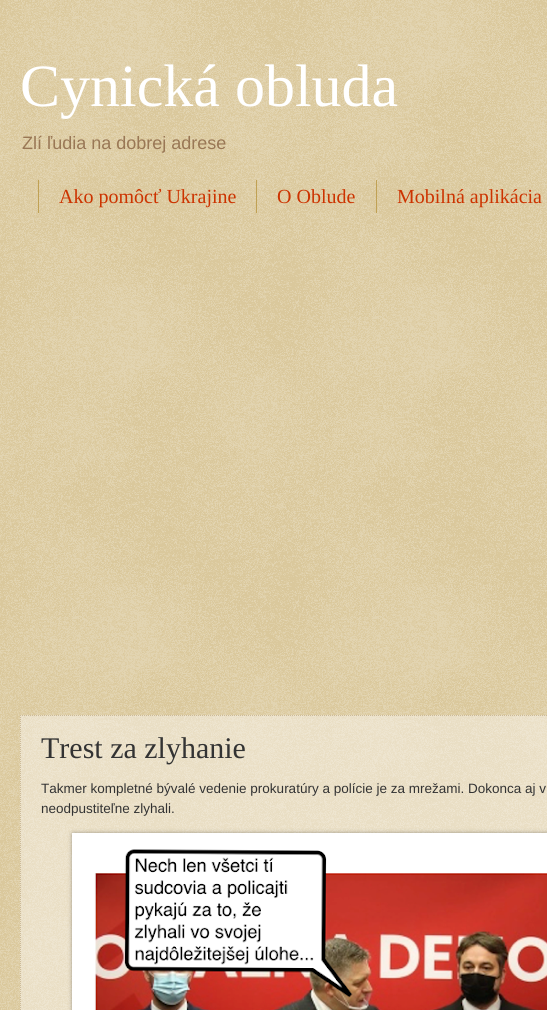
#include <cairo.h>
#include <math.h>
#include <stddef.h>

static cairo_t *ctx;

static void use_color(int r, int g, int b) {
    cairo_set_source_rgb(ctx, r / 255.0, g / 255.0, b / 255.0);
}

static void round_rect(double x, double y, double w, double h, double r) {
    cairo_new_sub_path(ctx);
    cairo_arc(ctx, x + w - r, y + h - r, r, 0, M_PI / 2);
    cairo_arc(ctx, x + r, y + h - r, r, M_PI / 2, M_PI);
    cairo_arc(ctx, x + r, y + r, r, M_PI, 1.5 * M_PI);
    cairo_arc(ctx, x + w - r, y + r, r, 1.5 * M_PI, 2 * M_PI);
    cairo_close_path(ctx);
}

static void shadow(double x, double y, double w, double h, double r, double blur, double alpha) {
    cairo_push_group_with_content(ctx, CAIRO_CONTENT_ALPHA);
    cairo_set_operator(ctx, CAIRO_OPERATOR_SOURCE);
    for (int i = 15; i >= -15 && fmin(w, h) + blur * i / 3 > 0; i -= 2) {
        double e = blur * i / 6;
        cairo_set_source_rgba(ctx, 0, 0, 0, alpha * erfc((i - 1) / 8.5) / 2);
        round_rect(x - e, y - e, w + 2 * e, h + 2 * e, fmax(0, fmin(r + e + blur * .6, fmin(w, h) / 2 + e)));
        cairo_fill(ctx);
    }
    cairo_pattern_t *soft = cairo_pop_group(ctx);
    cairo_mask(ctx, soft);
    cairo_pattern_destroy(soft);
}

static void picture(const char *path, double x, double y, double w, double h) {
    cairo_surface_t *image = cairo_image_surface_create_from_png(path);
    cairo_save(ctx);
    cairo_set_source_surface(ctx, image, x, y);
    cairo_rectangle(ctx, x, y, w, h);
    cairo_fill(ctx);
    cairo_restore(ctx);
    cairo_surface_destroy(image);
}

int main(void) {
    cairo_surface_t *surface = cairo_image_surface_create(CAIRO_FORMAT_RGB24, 547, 1010);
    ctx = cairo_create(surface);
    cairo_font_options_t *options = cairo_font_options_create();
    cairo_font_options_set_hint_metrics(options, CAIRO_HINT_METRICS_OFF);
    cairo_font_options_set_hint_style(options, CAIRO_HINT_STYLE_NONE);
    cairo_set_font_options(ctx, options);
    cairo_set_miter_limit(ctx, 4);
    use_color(192, 161, 84);
    cairo_paint(ctx);
    picture("img1.png", 0, 0, 547, 1010);
    cairo_select_font_face(ctx, "Liberation Serif", CAIRO_FONT_SLANT_NORMAL, CAIRO_FONT_WEIGHT_NORMAL);
    cairo_set_font_size(ctx, 60);
    use_color(255, 255, 255);
    cairo_move_to(ctx, 20, 106);
    cairo_show_text(ctx, "Cynická obluda");
    cairo_select_font_face(ctx, "Liberation Sans", CAIRO_FONT_SLANT_NORMAL, CAIRO_FONT_WEIGHT_NORMAL);
    cairo_set_font_size(ctx, 18);
    use_color(153, 119, 85);
    cairo_move_to(ctx, 22, 149);
    cairo_show_text(ctx, "Zlí ľudia na dobrej adrese");
    use_color(192, 161, 84);
    cairo_rectangle(ctx, 256, 180, 1, 33);
    cairo_fill(ctx);
    cairo_rectangle(ctx, 38, 180, 1, 33);
    cairo_fill(ctx);
    cairo_select_font_face(ctx, "Liberation Serif", CAIRO_FONT_SLANT_NORMAL, CAIRO_FONT_WEIGHT_NORMAL);
    cairo_set_font_size(ctx, 20);
    use_color(204, 51, 0);
    cairo_move_to(ctx, 59, 203);
    cairo_show_text(ctx, "Ako pomôcť Ukrajine");
    use_color(192, 161, 84);
    cairo_rectangle(ctx, 376, 180, 1, 33);
    cairo_fill(ctx);
    use_color(204, 51, 0);
    cairo_move_to(ctx, 277, 203);
    cairo_show_text(ctx, "O Oblude");
    cairo_move_to(ctx, 397, 203);
    cairo_show_text(ctx, "Mobilná aplikácia");
    cairo_set_source_rgba(ctx, 1, 1, 1, 0.4);
    cairo_rectangle(ctx, 20, 715, 527, 295);
    cairo_fill(ctx);
    cairo_new_path(ctx);
    cairo_move_to(ctx, 20, 715.5);
    cairo_line_to(ctx, 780, 715.5);
    use_color(204, 187, 153);
    cairo_set_line_width(ctx, 1);
    cairo_set_dash(ctx, (double[]){1, 1}, 2, 0);
    cairo_stroke(ctx);
    cairo_new_path(ctx);
    cairo_move_to(ctx, 20.5, 715);
    cairo_line_to(ctx, 20.5, 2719);
    cairo_stroke(ctx);
    cairo_set_font_size(ctx, 30);
    use_color(51, 51, 51);
    cairo_move_to(ctx, 41, 758);
    cairo_show_text(ctx, "Trest za zlyhanie");
    cairo_select_font_face(ctx, "Liberation Sans", CAIRO_FONT_SLANT_NORMAL, CAIRO_FONT_WEIGHT_NORMAL);
    cairo_set_font_size(ctx, 13.5);
    cairo_move_to(ctx, 41, 793);
    cairo_show_text(ctx, "Takmer kompletné bývalé vedenie prokuratúry a polície je za mrežami. Dokonca aj v");
    cairo_move_to(ctx, 41, 813);
    cairo_show_text(ctx, "neodpustiteľne zlyhali.");
    use_color(0, 0, 0);
    shadow(73, 834, 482, 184, 0, 2.5, 0.5);
    use_color(255, 255, 255);
    cairo_rectangle(ctx, 72, 833, 475, 177);
    cairo_fill(ctx);
    picture("img2.png", 94, 849, 453, 161);
    cairo_surface_write_to_png(surface, "result.png");
    cairo_font_options_destroy(options);
    cairo_destroy(ctx);
    cairo_surface_destroy(surface);
    return 0;
}
